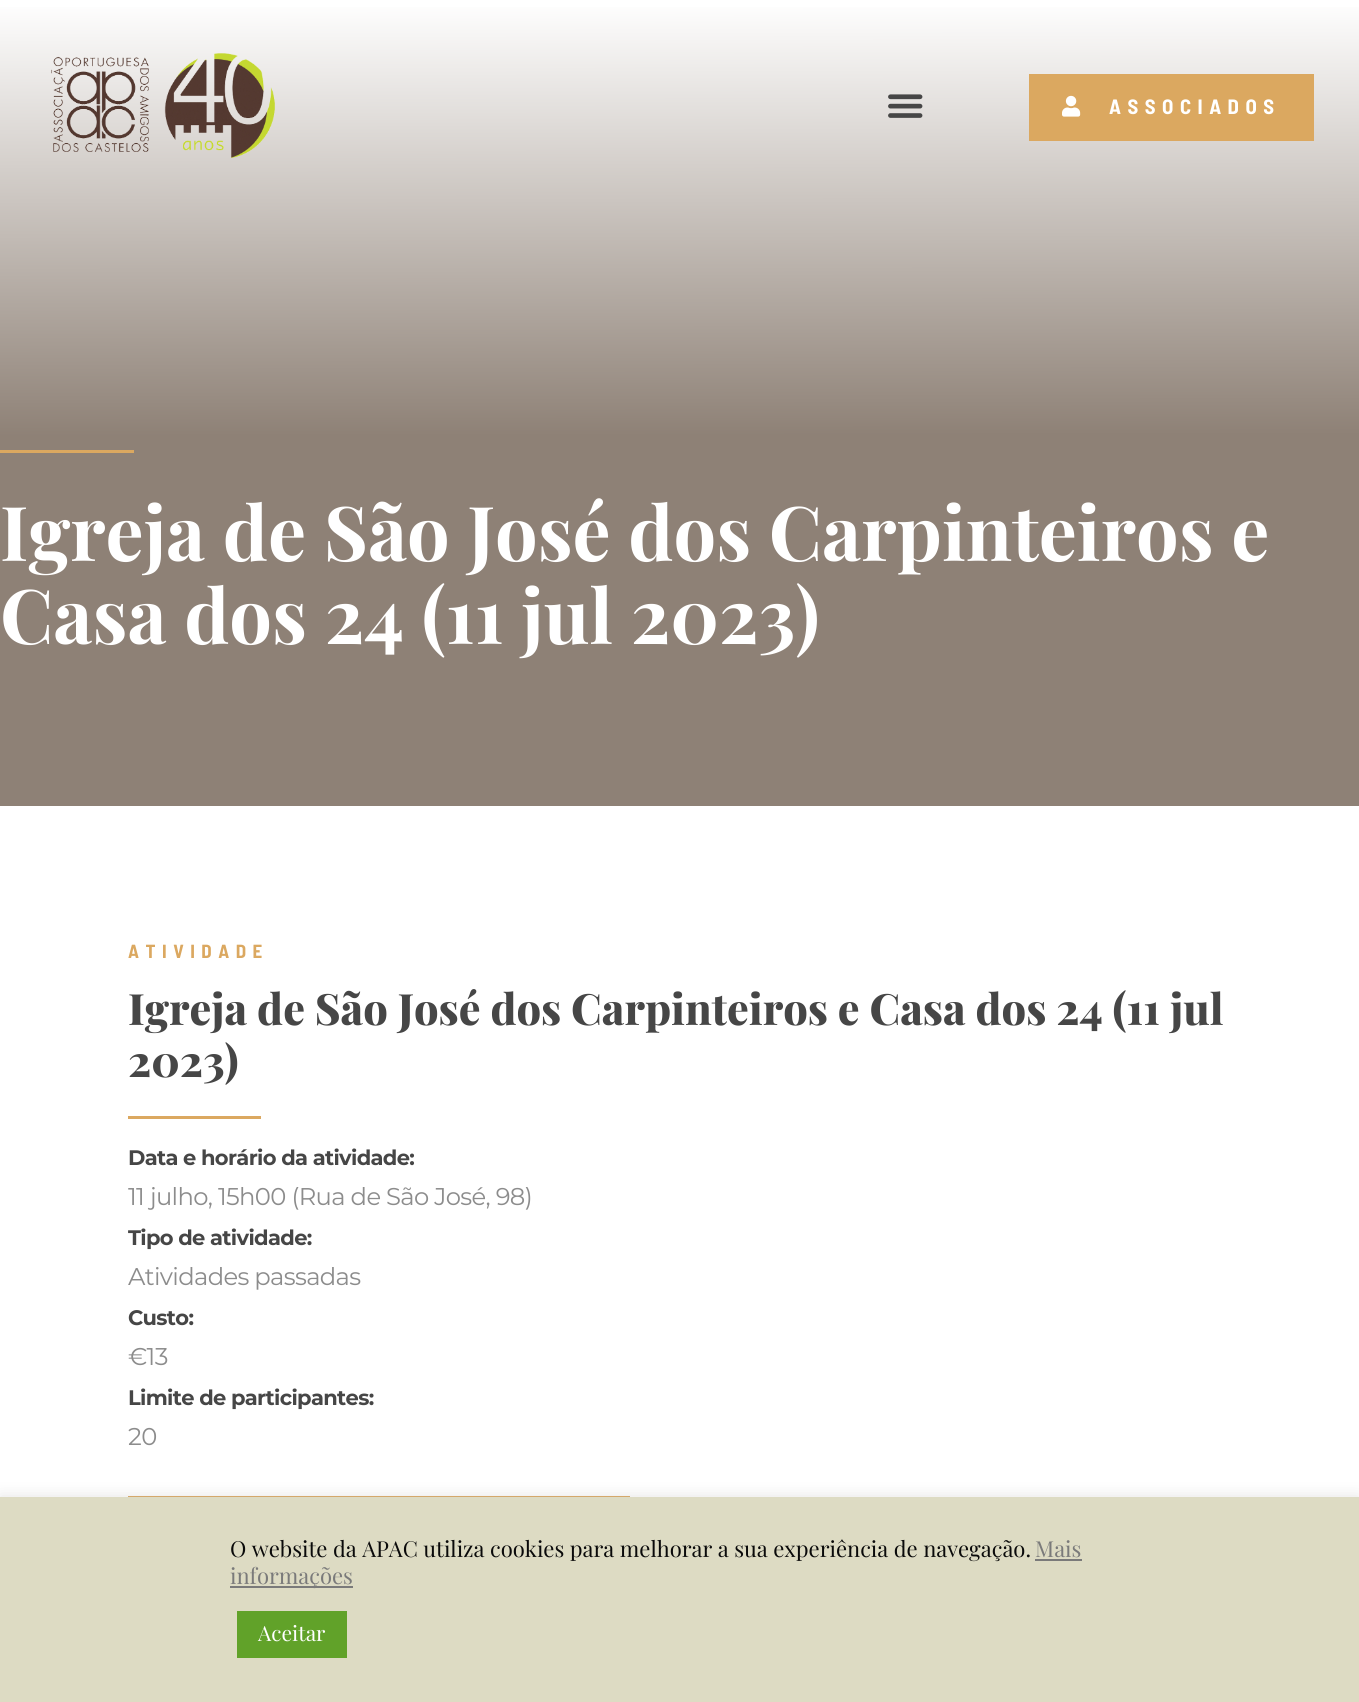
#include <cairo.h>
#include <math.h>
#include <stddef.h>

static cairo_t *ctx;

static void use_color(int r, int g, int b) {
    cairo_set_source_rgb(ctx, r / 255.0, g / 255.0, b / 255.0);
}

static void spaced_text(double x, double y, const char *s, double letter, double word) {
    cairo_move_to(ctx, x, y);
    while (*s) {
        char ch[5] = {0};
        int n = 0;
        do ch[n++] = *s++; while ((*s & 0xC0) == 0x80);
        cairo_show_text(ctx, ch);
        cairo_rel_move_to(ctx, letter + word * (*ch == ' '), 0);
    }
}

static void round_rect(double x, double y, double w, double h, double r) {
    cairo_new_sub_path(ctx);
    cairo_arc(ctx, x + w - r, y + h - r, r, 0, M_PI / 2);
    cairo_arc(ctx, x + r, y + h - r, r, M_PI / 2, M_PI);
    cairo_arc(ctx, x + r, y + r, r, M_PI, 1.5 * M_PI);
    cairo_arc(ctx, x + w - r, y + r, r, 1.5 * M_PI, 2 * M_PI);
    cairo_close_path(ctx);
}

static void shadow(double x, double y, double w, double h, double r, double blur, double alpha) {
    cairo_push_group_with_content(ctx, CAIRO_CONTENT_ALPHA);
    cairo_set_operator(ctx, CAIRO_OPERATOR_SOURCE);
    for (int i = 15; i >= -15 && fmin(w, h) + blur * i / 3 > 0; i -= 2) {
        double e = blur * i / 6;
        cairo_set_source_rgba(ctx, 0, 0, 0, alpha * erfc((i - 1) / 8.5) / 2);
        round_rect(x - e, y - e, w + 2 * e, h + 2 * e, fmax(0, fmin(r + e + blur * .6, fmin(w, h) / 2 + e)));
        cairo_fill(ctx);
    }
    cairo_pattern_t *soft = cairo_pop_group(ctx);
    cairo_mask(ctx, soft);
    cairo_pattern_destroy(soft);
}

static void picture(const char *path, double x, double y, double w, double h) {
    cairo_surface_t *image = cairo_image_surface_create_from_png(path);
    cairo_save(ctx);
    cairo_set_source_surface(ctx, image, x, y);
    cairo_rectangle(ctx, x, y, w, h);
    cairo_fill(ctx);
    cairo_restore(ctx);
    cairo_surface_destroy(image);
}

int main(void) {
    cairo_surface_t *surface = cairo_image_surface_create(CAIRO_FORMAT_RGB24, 1359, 1702);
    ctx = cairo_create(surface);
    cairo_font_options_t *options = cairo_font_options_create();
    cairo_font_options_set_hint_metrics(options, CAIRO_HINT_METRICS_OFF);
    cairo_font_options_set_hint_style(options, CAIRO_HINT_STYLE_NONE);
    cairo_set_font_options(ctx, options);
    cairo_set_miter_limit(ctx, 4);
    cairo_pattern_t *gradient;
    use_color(255, 255, 255);
    cairo_paint(ctx);
    gradient = cairo_pattern_create_linear(679, 0, 680, 806);
    cairo_pattern_add_color_stop_rgba(gradient, 0, 1, 1, 1, 1);
    cairo_pattern_add_color_stop_rgba(gradient, 0.54, 0.557, 0.506, 0.463, 1);
    cairo_set_source(ctx, gradient);
    cairo_pattern_destroy(gradient);
    cairo_rectangle(ctx, 0, 7, 1359, 799);
    cairo_fill(ctx);
    picture("img1.png", 51, 53, 224, 105);
    picture("img2.png", 888, 94, 35, 24);
    use_color(219, 168, 96);
    cairo_rectangle(ctx, 1029, 74, 285, 67);
    cairo_fill(ctx);
    picture("img3.png", 1062, 95, 19, 22);
    cairo_select_font_face(ctx, "Barlow Semi Condensed", CAIRO_FONT_SLANT_NORMAL, CAIRO_FONT_WEIGHT_BOLD);
    cairo_set_font_size(ctx, 20.75);
    use_color(255, 255, 255);
    spaced_text(1109, 114, "ASSOCIADOS", 6.5, 0);
    use_color(219, 168, 96);
    cairo_rectangle(ctx, 0, 450, 134, 3);
    cairo_fill(ctx);
    cairo_select_font_face(ctx, "Playfair Display", CAIRO_FONT_SLANT_NORMAL, CAIRO_FONT_WEIGHT_BOLD);
    cairo_set_font_size(ctx, 75.6);
    use_color(255, 255, 255);
    cairo_move_to(ctx, 0, 561);
    cairo_show_text(ctx, "Igreja de São José dos Carpinteiros e");
    cairo_move_to(ctx, 0, 644);
    cairo_show_text(ctx, "Casa dos 24 (11 jul 2023)");
    cairo_select_font_face(ctx, "Barlow Semi Condensed", CAIRO_FONT_SLANT_NORMAL, CAIRO_FONT_WEIGHT_BOLD);
    cairo_set_font_size(ctx, 19);
    use_color(219, 168, 96);
    spaced_text(128, 958, "ATIVIDADE", 6.5, 0);
    cairo_select_font_face(ctx, "Playfair Display ExtraBold", CAIRO_FONT_SLANT_NORMAL, CAIRO_FONT_WEIGHT_NORMAL);
    cairo_set_font_size(ctx, 43.2);
    use_color(70, 70, 70);
    cairo_move_to(ctx, 128, 1025);
    cairo_show_text(ctx, "Igreja de São José dos Carpinteiros e Casa dos 24 (11 jul");
    cairo_move_to(ctx, 128, 1077);
    cairo_show_text(ctx, "2023)");
    use_color(219, 168, 96);
    cairo_rectangle(ctx, 128, 1116, 133, 3);
    cairo_fill(ctx);
    cairo_select_font_face(ctx, "Montserrat", CAIRO_FONT_SLANT_NORMAL, CAIRO_FONT_WEIGHT_BOLD);
    cairo_set_font_size(ctx, 21);
    use_color(70, 70, 70);
    spaced_text(128, 1165, "Data e horário da atividade:", -0.65, 0);
    cairo_select_font_face(ctx, "Montserrat", CAIRO_FONT_SLANT_NORMAL, CAIRO_FONT_WEIGHT_NORMAL);
    cairo_set_font_size(ctx, 24.25);
    use_color(140, 140, 140);
    spaced_text(128, 1205, "11 julho, 15h00 (Rua de São José, 98)", -0.65, 0);
    cairo_select_font_face(ctx, "Montserrat", CAIRO_FONT_SLANT_NORMAL, CAIRO_FONT_WEIGHT_BOLD);
    cairo_set_font_size(ctx, 21);
    use_color(70, 70, 70);
    spaced_text(128, 1245, "Tipo de atividade:", -0.65, 0);
    cairo_select_font_face(ctx, "Montserrat", CAIRO_FONT_SLANT_NORMAL, CAIRO_FONT_WEIGHT_NORMAL);
    cairo_set_font_size(ctx, 24.25);
    use_color(140, 140, 140);
    spaced_text(128, 1285, "Atividades passadas", -0.65, 0);
    cairo_select_font_face(ctx, "Montserrat", CAIRO_FONT_SLANT_NORMAL, CAIRO_FONT_WEIGHT_BOLD);
    cairo_set_font_size(ctx, 21);
    use_color(70, 70, 70);
    spaced_text(128, 1325, "Custo:", -0.65, 0);
    cairo_select_font_face(ctx, "Montserrat", CAIRO_FONT_SLANT_NORMAL, CAIRO_FONT_WEIGHT_NORMAL);
    cairo_set_font_size(ctx, 24.25);
    use_color(140, 140, 140);
    spaced_text(128, 1365, "€13", -0.65, 0);
    cairo_select_font_face(ctx, "Montserrat", CAIRO_FONT_SLANT_NORMAL, CAIRO_FONT_WEIGHT_BOLD);
    cairo_set_font_size(ctx, 21);
    use_color(70, 70, 70);
    spaced_text(128, 1405, "Limite de participantes:", -0.65, 0);
    cairo_select_font_face(ctx, "Montserrat", CAIRO_FONT_SLANT_NORMAL, CAIRO_FONT_WEIGHT_NORMAL);
    cairo_set_font_size(ctx, 24.25);
    use_color(140, 140, 140);
    spaced_text(128, 1445, "20", -0.65, 0);
    use_color(219, 168, 96);
    cairo_rectangle(ctx, 128, 1496, 502, 1);
    cairo_fill(ctx);
    use_color(172, 171, 171);
    shadow(0, 1496, 1359, 205, 0, 7.5, 0.3);
    use_color(221, 219, 195);
    cairo_rectangle(ctx, 0, 1497, 1359, 205);
    cairo_fill(ctx);
    cairo_select_font_face(ctx, "Playfair Display", CAIRO_FONT_SLANT_NORMAL, CAIRO_FONT_WEIGHT_NORMAL);
    cairo_set_font_size(ctx, 22);
    use_color(10, 10, 10);
    cairo_move_to(ctx, 230, 1557);
    cairo_show_text(ctx, "O website da APAC utiliza cookies para melhorar a sua experiência de navegação.");
    use_color(122, 122, 122);
    cairo_move_to(ctx, 1035, 1557);
    cairo_show_text(ctx, "Mais");
    cairo_rectangle(ctx, 1035, 1559, 47, 2);
    cairo_fill(ctx);
    cairo_rectangle(ctx, 230, 1586, 123, 2);
    cairo_fill(ctx);
    cairo_move_to(ctx, 230, 1584);
    cairo_show_text(ctx, "informações");
    use_color(97, 162, 41);
    cairo_rectangle(ctx, 237, 1611, 110, 47);
    cairo_fill(ctx);
    cairo_set_font_size(ctx, 21);
    use_color(255, 255, 255);
    cairo_move_to(ctx, 258, 1641);
    cairo_show_text(ctx, "Aceitar");
    cairo_surface_write_to_png(surface, "result.png");
    cairo_font_options_destroy(options);
    cairo_destroy(ctx);
    cairo_surface_destroy(surface);
    return 0;
}
